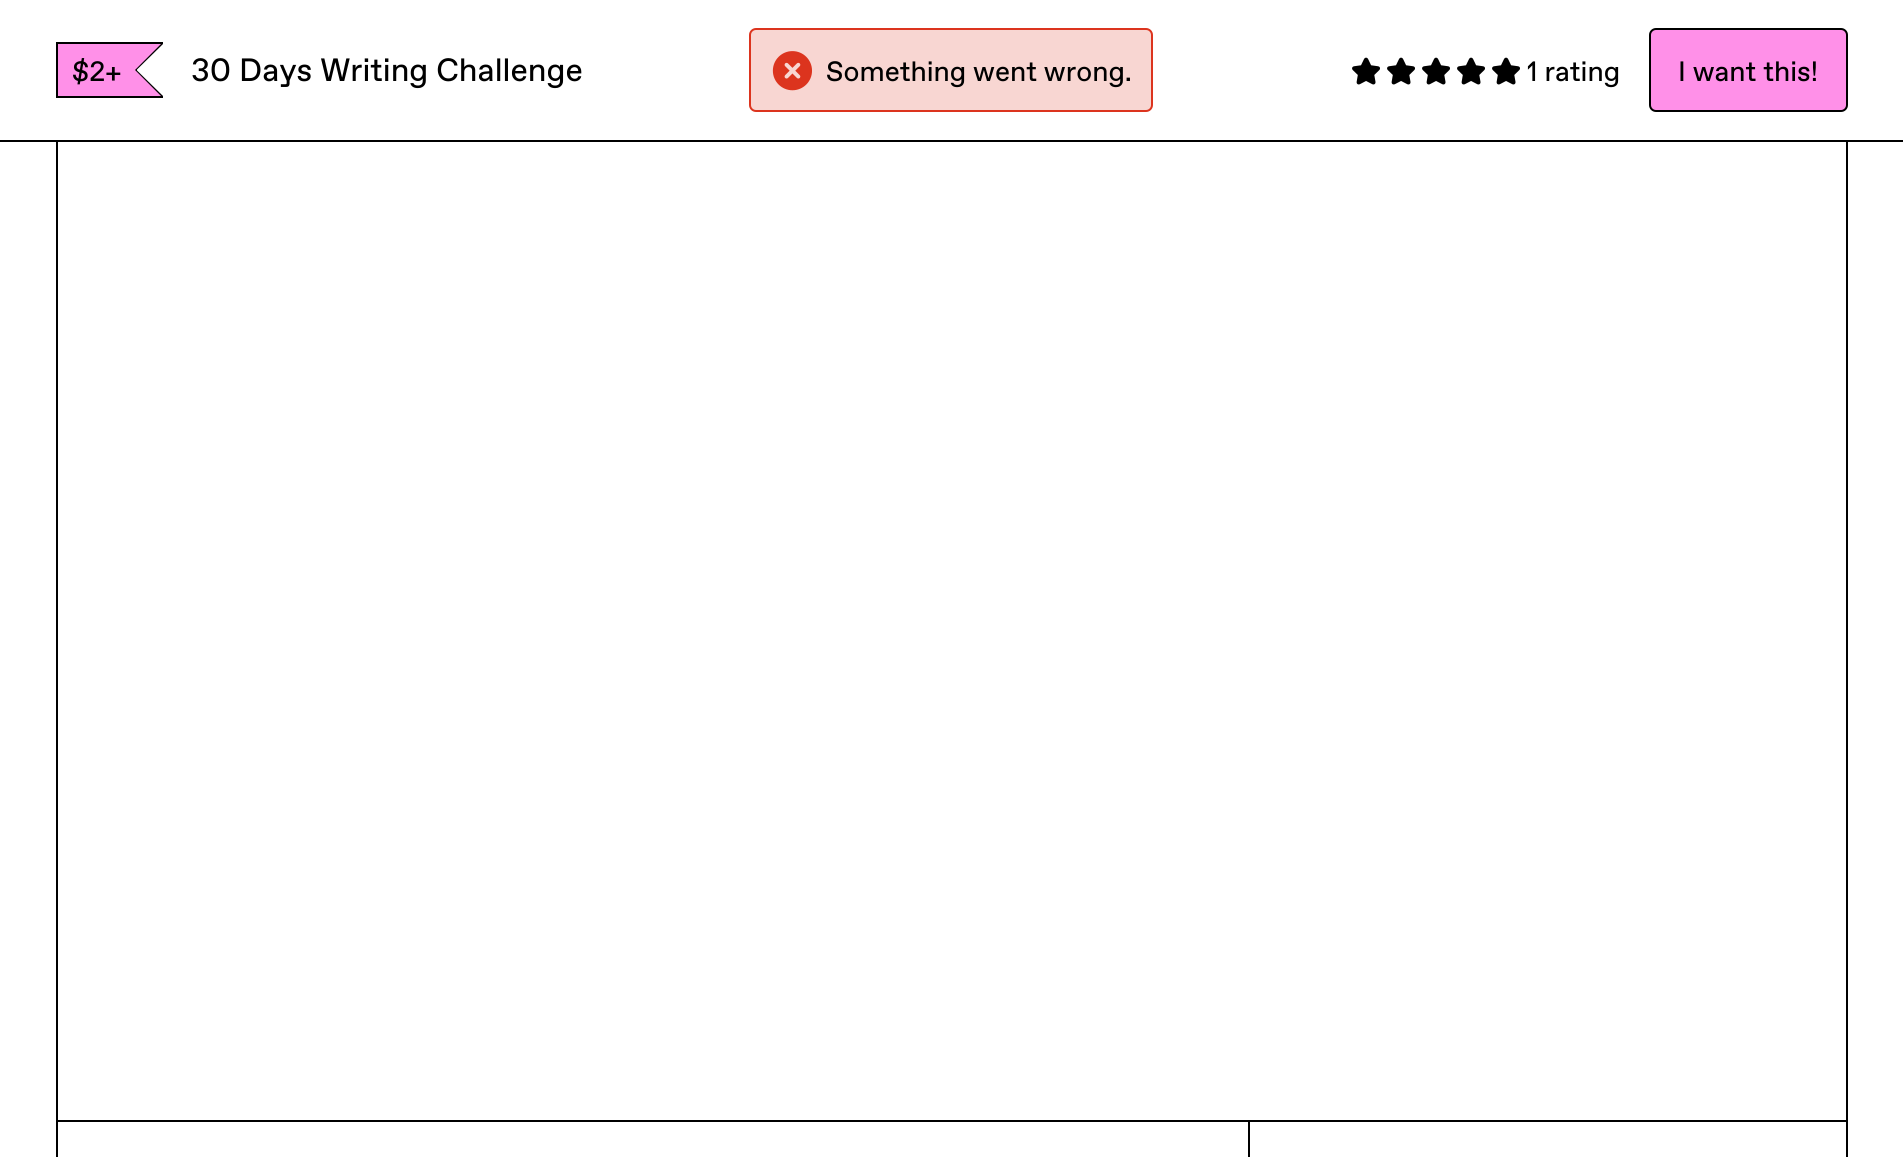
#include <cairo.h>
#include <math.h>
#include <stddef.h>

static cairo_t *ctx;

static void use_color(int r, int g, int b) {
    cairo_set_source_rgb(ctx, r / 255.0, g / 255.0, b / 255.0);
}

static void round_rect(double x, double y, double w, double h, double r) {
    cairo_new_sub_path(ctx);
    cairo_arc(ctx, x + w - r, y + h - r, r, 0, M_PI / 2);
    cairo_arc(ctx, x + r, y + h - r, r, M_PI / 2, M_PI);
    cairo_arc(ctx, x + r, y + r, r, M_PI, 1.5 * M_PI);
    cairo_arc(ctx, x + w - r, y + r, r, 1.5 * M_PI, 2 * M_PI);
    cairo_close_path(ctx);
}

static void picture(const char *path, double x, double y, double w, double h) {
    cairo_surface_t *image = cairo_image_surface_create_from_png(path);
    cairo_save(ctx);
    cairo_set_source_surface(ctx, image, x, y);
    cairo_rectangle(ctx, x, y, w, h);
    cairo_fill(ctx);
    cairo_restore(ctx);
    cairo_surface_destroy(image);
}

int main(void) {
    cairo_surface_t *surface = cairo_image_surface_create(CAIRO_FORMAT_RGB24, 1903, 1157);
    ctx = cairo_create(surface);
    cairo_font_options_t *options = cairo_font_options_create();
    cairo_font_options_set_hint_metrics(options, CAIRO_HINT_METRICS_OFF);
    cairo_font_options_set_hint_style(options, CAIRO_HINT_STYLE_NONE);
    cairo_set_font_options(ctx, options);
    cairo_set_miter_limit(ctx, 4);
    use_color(255, 255, 255);
    cairo_paint(ctx);
    cairo_rectangle(ctx, 57, 113, 1790, 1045);
    use_color(0, 0, 0);
    cairo_stroke(ctx);
    cairo_rectangle(ctx, 0, 140, 1903, 2);
    cairo_fill(ctx);
    use_color(255, 255, 255);
    cairo_rectangle(ctx, 56, 112, 1792, 28);
    cairo_fill(ctx);
    use_color(0, 0, 0);
    cairo_rectangle(ctx, 56, 42, 107, 2);
    cairo_fill(ctx);
    cairo_rectangle(ctx, 56, 96, 107, 2);
    cairo_fill(ctx);
    cairo_rectangle(ctx, 56, 42, 2, 56);
    cairo_fill(ctx);
    use_color(255, 144, 232);
    cairo_rectangle(ctx, 58, 44, 77, 52);
    cairo_fill(ctx);
    use_color(0, 0, 0);
    cairo_new_path(ctx);
    cairo_move_to(ctx, 135, 44);
    cairo_line_to(ctx, 163, 44);
    cairo_line_to(ctx, 136.5, 70);
    cairo_close_path(ctx);
    cairo_move_to(ctx, 163, 96);
    cairo_line_to(ctx, 135, 96);
    cairo_line_to(ctx, 136.5, 70);
    cairo_close_path(ctx);
    cairo_fill(ctx);
    cairo_rectangle(ctx, 135, 68, 2, 4);
    cairo_fill(ctx);
    use_color(255, 144, 232);
    cairo_new_path(ctx);
    cairo_move_to(ctx, 133, 44);
    cairo_line_to(ctx, 161, 44);
    cairo_line_to(ctx, 135, 70);
    cairo_close_path(ctx);
    cairo_move_to(ctx, 161, 96);
    cairo_line_to(ctx, 133, 96);
    cairo_line_to(ctx, 135, 70);
    cairo_close_path(ctx);
    cairo_fill(ctx);
    cairo_select_font_face(ctx, "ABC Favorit", CAIRO_FONT_SLANT_NORMAL, CAIRO_FONT_WEIGHT_NORMAL);
    cairo_set_font_size(ctx, 28);
    use_color(0, 0, 0);
    cairo_move_to(ctx, 72, 81);
    cairo_show_text(ctx, "$2+");
    cairo_set_font_size(ctx, 32.25);
    cairo_move_to(ctx, 191, 81);
    cairo_show_text(ctx, "30 Days Writing Challenge");
    picture("img1.png", 1352, 57, 28, 28);
    picture("img1.png", 1387, 57, 28, 28);
    picture("img1.png", 1422, 57, 28, 28);
    picture("img1.png", 1457, 57, 28, 28);
    picture("img1.png", 1492, 57, 28, 28);
    cairo_set_font_size(ctx, 28);
    cairo_move_to(ctx, 1527, 81);
    cairo_show_text(ctx, "1 rating");
    use_color(255, 144, 232);
    round_rect(1650, 29, 197, 82, 6);
    cairo_fill_preserve(ctx);
    use_color(0, 0, 0);
    cairo_stroke(ctx);
    cairo_move_to(ctx, 1678, 81);
    cairo_show_text(ctx, "I want this!");
    cairo_rectangle(ctx, 58, 1120, 1788, 2);
    cairo_fill(ctx);
    cairo_rectangle(ctx, 1248, 1122, 2, 35);
    cairo_fill(ctx);
    use_color(248, 214, 210);
    round_rect(750, 29, 402, 82, 6);
    cairo_fill_preserve(ctx);
    use_color(220, 52, 30);
    cairo_stroke(ctx);
    picture("img2.png", 772, 51, 40, 40);
    use_color(0, 0, 0);
    cairo_move_to(ctx, 826, 81);
    cairo_show_text(ctx, "Something went wrong.");
    cairo_surface_write_to_png(surface, "result.png");
    cairo_font_options_destroy(options);
    cairo_destroy(ctx);
    cairo_surface_destroy(surface);
    return 0;
}
